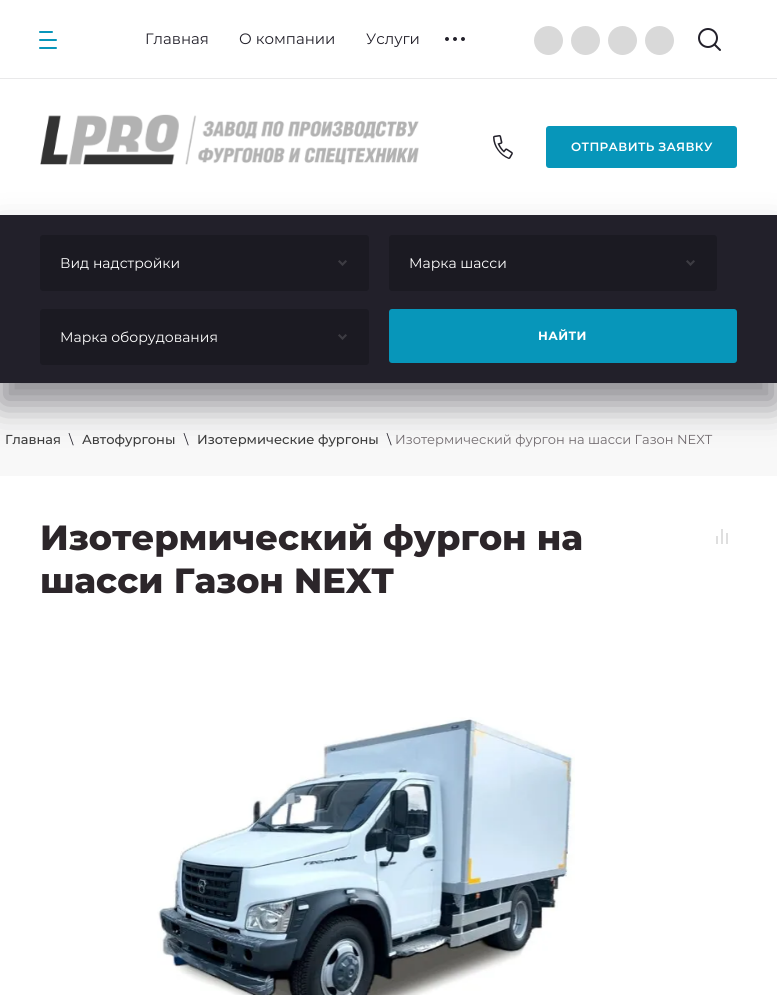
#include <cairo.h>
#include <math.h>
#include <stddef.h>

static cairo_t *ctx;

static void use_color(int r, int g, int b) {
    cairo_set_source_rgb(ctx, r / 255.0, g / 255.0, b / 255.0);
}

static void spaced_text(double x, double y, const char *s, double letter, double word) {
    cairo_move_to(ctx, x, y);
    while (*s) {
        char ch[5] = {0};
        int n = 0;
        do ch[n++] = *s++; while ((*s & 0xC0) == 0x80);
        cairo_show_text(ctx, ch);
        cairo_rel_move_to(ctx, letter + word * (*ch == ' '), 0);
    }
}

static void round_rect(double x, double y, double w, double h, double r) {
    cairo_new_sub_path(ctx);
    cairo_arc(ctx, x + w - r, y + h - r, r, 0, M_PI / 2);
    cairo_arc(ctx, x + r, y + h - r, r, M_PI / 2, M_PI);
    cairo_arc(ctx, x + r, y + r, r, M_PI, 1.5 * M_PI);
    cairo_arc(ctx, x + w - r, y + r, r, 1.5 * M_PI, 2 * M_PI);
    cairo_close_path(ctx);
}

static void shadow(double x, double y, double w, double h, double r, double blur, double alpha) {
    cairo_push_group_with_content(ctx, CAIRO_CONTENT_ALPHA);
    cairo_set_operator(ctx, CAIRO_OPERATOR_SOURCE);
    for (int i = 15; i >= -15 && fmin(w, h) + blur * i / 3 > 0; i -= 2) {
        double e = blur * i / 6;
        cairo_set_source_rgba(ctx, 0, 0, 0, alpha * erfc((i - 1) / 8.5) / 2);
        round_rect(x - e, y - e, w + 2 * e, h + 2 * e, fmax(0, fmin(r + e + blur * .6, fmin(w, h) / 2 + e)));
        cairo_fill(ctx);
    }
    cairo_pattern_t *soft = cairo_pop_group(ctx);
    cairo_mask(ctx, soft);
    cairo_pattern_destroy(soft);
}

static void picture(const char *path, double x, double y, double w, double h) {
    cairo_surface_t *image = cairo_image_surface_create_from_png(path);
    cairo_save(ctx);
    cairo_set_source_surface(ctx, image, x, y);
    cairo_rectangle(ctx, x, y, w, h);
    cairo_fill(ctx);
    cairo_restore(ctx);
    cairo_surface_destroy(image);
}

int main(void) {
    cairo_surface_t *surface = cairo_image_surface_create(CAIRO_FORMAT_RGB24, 777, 995);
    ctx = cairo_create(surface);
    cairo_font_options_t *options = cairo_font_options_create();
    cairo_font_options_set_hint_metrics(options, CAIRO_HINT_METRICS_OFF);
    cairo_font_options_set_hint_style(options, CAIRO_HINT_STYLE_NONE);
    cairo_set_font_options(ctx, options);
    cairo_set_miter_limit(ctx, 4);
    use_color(255, 255, 255);
    cairo_paint(ctx);
    use_color(233, 233, 234);
    cairo_rectangle(ctx, 0, 78, 777, 1);
    cairo_fill(ctx);
    picture("img1.png", 39, 31, 18, 18);
    cairo_select_font_face(ctx, "Montserrat", CAIRO_FONT_SLANT_NORMAL, CAIRO_FONT_WEIGHT_NORMAL);
    cairo_set_font_size(ctx, 15);
    use_color(34, 32, 42);
    cairo_move_to(ctx, 145, 44);
    cairo_show_text(ctx, "Главная");
    cairo_move_to(ctx, 239, 44);
    cairo_show_text(ctx, "О компании");
    cairo_move_to(ctx, 366, 44);
    cairo_show_text(ctx, "Услуги");
    picture("img2.png", 445, 37, 20, 4);
    use_color(217, 217, 217);
    cairo_arc(ctx, 548.5, 40.5, 14.5, 0, 2 * M_PI);
    cairo_fill(ctx);
    cairo_arc(ctx, 585.5, 40.5, 14.5, 0, 2 * M_PI);
    cairo_fill(ctx);
    cairo_arc(ctx, 622.5, 40.5, 14.5, 0, 2 * M_PI);
    cairo_fill(ctx);
    cairo_arc(ctx, 659.5, 40.5, 14.5, 0, 2 * M_PI);
    cairo_fill(ctx);
    picture("img3.png", 698, 28, 23, 23);
    picture("img4.png", 40, 114, 379, 51);
    picture("img5.png", 493, 135, 20, 24);
    use_color(7, 150, 186);
    round_rect(546, 126, 191, 42, 3);
    cairo_fill(ctx);
    cairo_select_font_face(ctx, "Montserrat SemiBold", CAIRO_FONT_SLANT_NORMAL, CAIRO_FONT_WEIGHT_NORMAL);
    cairo_set_font_size(ctx, 12);
    use_color(255, 255, 255);
    spaced_text(571, 151, "ОТПРАВИТЬ ЗАЯВКУ", 0.4, 0);
    use_color(248, 248, 248);
    cairo_rectangle(ctx, 0, 383, 777, 93);
    cairo_fill(ctx);
    use_color(34, 32, 42);
    shadow(0, 236, 777, 168, 0, 17.5, 0.51);
    use_color(34, 32, 42);
    cairo_rectangle(ctx, 0, 215, 777, 168);
    cairo_fill(ctx);
    use_color(27, 26, 34);
    round_rect(40, 235, 329, 56, 3);
    cairo_fill(ctx);
    cairo_select_font_face(ctx, "Montserrat", CAIRO_FONT_SLANT_NORMAL, CAIRO_FONT_WEIGHT_NORMAL);
    cairo_set_font_size(ctx, 14);
    use_color(255, 255, 255);
    cairo_move_to(ctx, 60, 268);
    cairo_show_text(ctx, "Вид надстройки");
    picture("img6.png", 338, 260, 9, 6);
    use_color(27, 26, 34);
    round_rect(389, 235, 328, 56, 3);
    cairo_fill(ctx);
    use_color(255, 255, 255);
    cairo_move_to(ctx, 409, 268);
    cairo_show_text(ctx, "Марка шасси");
    picture("img6.png", 686, 260, 9, 6);
    use_color(27, 26, 34);
    round_rect(40, 309, 329, 56, 3);
    cairo_fill(ctx);
    use_color(255, 255, 255);
    cairo_move_to(ctx, 60, 342);
    cairo_show_text(ctx, "Марка оборудования");
    picture("img6.png", 338, 334, 9, 6);
    use_color(7, 150, 186);
    round_rect(389, 309, 348, 54, 3);
    cairo_fill(ctx);
    cairo_select_font_face(ctx, "Montserrat", CAIRO_FONT_SLANT_NORMAL, CAIRO_FONT_WEIGHT_BOLD);
    cairo_set_font_size(ctx, 12);
    use_color(255, 255, 255);
    spaced_text(538, 340, "НАЙТИ", 0.4, 0);
    cairo_select_font_face(ctx, "Montserrat Medium", CAIRO_FONT_SLANT_NORMAL, CAIRO_FONT_WEIGHT_NORMAL);
    cairo_set_font_size(ctx, 13);
    use_color(61, 61, 61);
    cairo_move_to(ctx, 5, 444);
    cairo_show_text(ctx, "Главная");
    cairo_select_font_face(ctx, "Montserrat", CAIRO_FONT_SLANT_NORMAL, CAIRO_FONT_WEIGHT_NORMAL);
    use_color(34, 32, 42);
    cairo_move_to(ctx, 69, 444);
    cairo_show_text(ctx, "\\");
    cairo_select_font_face(ctx, "Montserrat Medium", CAIRO_FONT_SLANT_NORMAL, CAIRO_FONT_WEIGHT_NORMAL);
    use_color(61, 61, 61);
    cairo_move_to(ctx, 82, 444);
    cairo_show_text(ctx, "Автофургоны");
    cairo_select_font_face(ctx, "Montserrat", CAIRO_FONT_SLANT_NORMAL, CAIRO_FONT_WEIGHT_NORMAL);
    use_color(34, 32, 42);
    cairo_move_to(ctx, 184, 444);
    cairo_show_text(ctx, "\\");
    cairo_select_font_face(ctx, "Montserrat Medium", CAIRO_FONT_SLANT_NORMAL, CAIRO_FONT_WEIGHT_NORMAL);
    use_color(61, 61, 61);
    cairo_move_to(ctx, 197, 444);
    cairo_show_text(ctx, "Изотермические фургоны");
    cairo_select_font_face(ctx, "Montserrat", CAIRO_FONT_SLANT_NORMAL, CAIRO_FONT_WEIGHT_NORMAL);
    use_color(34, 32, 42);
    cairo_move_to(ctx, 387, 444);
    cairo_show_text(ctx, "\\");
    use_color(112, 106, 110);
    cairo_move_to(ctx, 395, 444);
    cairo_show_text(ctx, "Изотермический фургон на шасси Газон NEXT");
    cairo_select_font_face(ctx, "Montserrat ExtraBold", CAIRO_FONT_SLANT_NORMAL, CAIRO_FONT_WEIGHT_NORMAL);
    cairo_set_font_size(ctx, 35);
    use_color(44, 38, 42);
    cairo_move_to(ctx, 40, 550);
    cairo_show_text(ctx, "Изотермический фургон на");
    cairo_move_to(ctx, 40, 593);
    cairo_show_text(ctx, "шасси Газон NEXT");
    picture("img7.png", 716, 529, 12, 15);
    picture("img8.png", 157, 717, 418, 278);
    cairo_surface_write_to_png(surface, "result.png");
    cairo_font_options_destroy(options);
    cairo_destroy(ctx);
    cairo_surface_destroy(surface);
    return 0;
}
